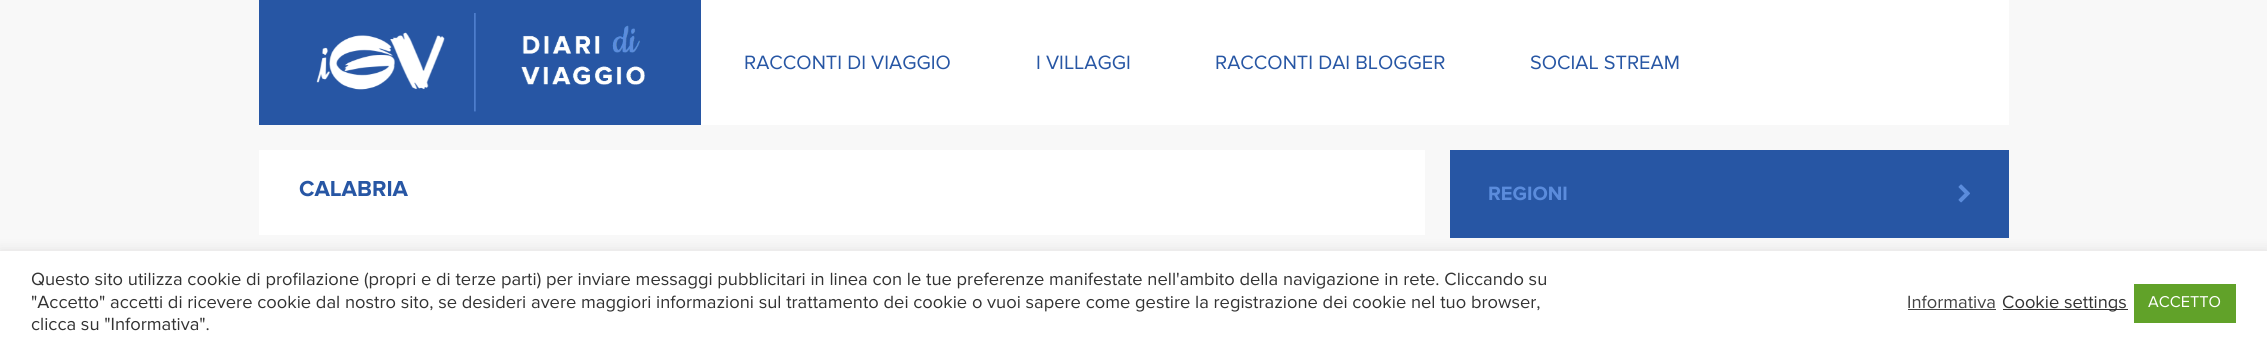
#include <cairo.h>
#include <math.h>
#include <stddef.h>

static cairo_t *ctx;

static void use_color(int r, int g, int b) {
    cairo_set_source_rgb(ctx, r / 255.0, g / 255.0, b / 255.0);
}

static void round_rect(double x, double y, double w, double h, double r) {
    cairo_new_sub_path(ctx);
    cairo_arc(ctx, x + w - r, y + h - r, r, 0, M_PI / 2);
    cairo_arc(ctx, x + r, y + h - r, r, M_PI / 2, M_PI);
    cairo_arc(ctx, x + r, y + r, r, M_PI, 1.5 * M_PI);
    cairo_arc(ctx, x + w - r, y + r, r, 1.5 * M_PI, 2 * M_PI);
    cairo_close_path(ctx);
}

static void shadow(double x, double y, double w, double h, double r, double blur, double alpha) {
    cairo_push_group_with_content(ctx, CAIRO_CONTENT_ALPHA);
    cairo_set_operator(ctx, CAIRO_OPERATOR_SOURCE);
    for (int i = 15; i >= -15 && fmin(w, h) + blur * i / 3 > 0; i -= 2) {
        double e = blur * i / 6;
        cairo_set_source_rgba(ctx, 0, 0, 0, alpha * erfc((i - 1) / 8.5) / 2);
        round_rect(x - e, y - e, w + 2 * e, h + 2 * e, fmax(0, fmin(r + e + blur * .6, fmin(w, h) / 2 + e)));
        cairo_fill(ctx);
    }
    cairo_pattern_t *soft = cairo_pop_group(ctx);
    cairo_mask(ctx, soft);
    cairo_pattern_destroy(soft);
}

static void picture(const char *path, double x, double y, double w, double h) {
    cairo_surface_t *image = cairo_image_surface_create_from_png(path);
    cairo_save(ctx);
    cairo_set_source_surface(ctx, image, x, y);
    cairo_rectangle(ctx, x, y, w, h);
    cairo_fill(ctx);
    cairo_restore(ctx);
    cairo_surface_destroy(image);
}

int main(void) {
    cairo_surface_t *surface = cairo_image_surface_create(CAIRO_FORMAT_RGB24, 2267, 353);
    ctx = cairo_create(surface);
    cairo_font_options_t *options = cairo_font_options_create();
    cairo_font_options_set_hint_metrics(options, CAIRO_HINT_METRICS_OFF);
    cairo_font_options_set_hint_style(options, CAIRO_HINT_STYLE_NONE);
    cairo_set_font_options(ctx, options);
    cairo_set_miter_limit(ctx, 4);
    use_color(248, 248, 248);
    cairo_paint(ctx);
    use_color(255, 255, 255);
    cairo_rectangle(ctx, 701, 0, 1308, 125);
    cairo_fill(ctx);
    use_color(39, 86, 164);
    cairo_rectangle(ctx, 259, 0, 442, 125);
    cairo_fill(ctx);
    picture("img1.png", 316, 13, 329, 99);
    cairo_select_font_face(ctx, "Proxima Nova", CAIRO_FONT_SLANT_NORMAL, CAIRO_FONT_WEIGHT_NORMAL);
    cairo_set_font_size(ctx, 20);
    cairo_move_to(ctx, 744, 69);
    cairo_show_text(ctx, "RACCONTI DI VIAGGIO");
    cairo_move_to(ctx, 1036, 69);
    cairo_show_text(ctx, "I VILLAGGI");
    cairo_move_to(ctx, 1215, 69);
    cairo_show_text(ctx, "RACCONTI DAI BLOGGER");
    cairo_move_to(ctx, 1530, 69);
    cairo_show_text(ctx, "SOCIAL STREAM");
    use_color(255, 255, 255);
    cairo_rectangle(ctx, 259, 150, 1166, 85);
    cairo_fill(ctx);
    cairo_select_font_face(ctx, "Proxima Nova", CAIRO_FONT_SLANT_NORMAL, CAIRO_FONT_WEIGHT_BOLD);
    cairo_set_font_size(ctx, 22.5);
    use_color(39, 86, 164);
    cairo_move_to(ctx, 299, 196);
    cairo_show_text(ctx, "CALABRIA");
    cairo_rectangle(ctx, 1450, 150, 559, 88);
    cairo_fill(ctx);
    cairo_set_font_size(ctx, 20);
    use_color(91, 140, 220);
    cairo_move_to(ctx, 1488, 200);
    cairo_show_text(ctx, "REGIONI");
    picture("img2.png", 1958, 184, 12, 19);
    use_color(172, 171, 171);
    shadow(0, 250, 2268, 103, 0, 6, 0.3);
    use_color(255, 255, 255);
    cairo_rectangle(ctx, 0, 251, 2267, 102);
    cairo_fill(ctx);
    cairo_select_font_face(ctx, "Proxima Nova", CAIRO_FONT_SLANT_NORMAL, CAIRO_FONT_WEIGHT_NORMAL);
    cairo_set_font_size(ctx, 18.33);
    use_color(51, 51, 51);
    cairo_move_to(ctx, 31, 285);
    cairo_show_text(ctx, "Questo sito utilizza cookie di profilazione (propri e di terze parti) per inviare messaggi pubblicitari in linea con le tue preferenze manifestate nell'ambito della navigazione in rete. Cliccando su");
    cairo_move_to(ctx, 31, 308);
    cairo_show_text(ctx, "\"Accetto\" accetti di ricevere cookie dal nostro sito, se desideri avere maggiori informazioni sul trattamento dei cookie o vuoi sapere come gestire la registrazione dei cookie nel tuo browser,");
    cairo_move_to(ctx, 31, 330);
    cairo_show_text(ctx, "clicca su \"Informativa\".");
    use_color(68, 68, 68);
    cairo_move_to(ctx, 1907, 308);
    cairo_show_text(ctx, "Informativa");
    cairo_rectangle(ctx, 1908, 309, 88, 1);
    cairo_fill(ctx);
    use_color(51, 51, 51);
    cairo_rectangle(ctx, 2003, 309, 125, 1);
    cairo_fill(ctx);
    cairo_move_to(ctx, 2002, 308);
    cairo_show_text(ctx, "Cookie settings");
    use_color(97, 162, 41);
    cairo_rectangle(ctx, 2134, 284, 102, 39);
    cairo_fill(ctx);
    cairo_set_font_size(ctx, 16.25);
    use_color(255, 255, 255);
    cairo_move_to(ctx, 2148, 307);
    cairo_show_text(ctx, "ACCETTO");
    cairo_surface_write_to_png(surface, "result.png");
    cairo_font_options_destroy(options);
    cairo_destroy(ctx);
    cairo_surface_destroy(surface);
    return 0;
}
